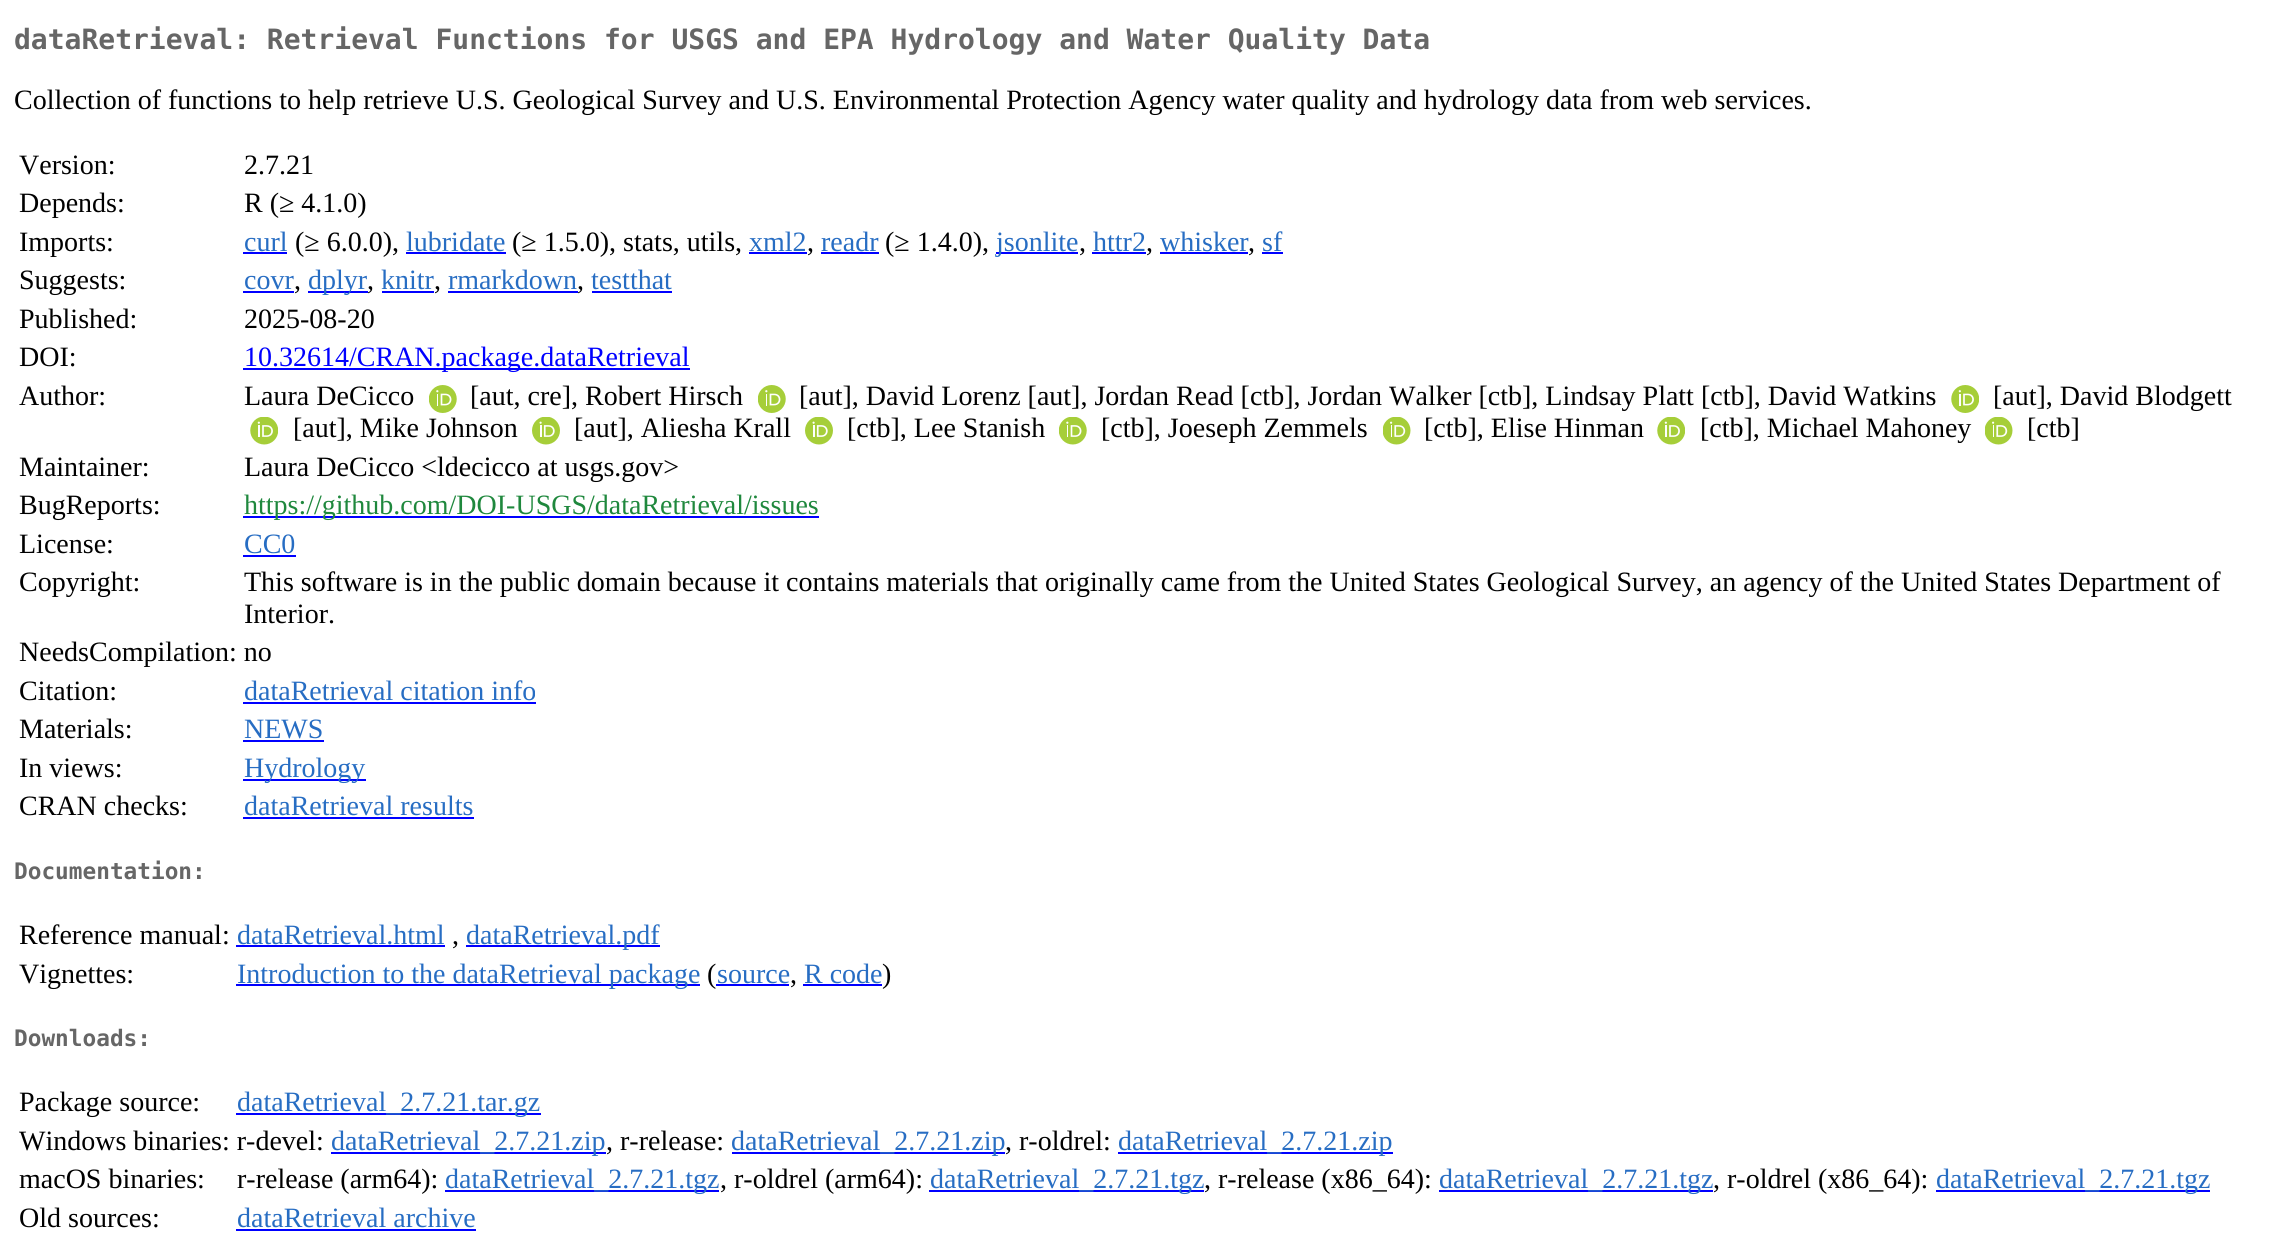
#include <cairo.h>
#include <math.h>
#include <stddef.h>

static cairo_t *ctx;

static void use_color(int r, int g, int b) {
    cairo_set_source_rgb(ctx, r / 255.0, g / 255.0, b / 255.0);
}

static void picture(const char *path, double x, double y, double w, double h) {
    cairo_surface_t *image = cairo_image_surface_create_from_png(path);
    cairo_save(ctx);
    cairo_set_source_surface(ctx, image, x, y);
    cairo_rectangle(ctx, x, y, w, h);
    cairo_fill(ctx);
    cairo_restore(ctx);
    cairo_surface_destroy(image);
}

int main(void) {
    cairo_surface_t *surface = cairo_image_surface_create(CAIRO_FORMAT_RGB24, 2276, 1238);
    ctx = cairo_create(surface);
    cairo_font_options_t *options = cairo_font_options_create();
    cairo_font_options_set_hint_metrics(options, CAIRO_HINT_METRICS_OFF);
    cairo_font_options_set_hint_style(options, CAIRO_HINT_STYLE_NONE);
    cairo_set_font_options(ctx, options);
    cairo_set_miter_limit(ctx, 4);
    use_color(255, 255, 255);
    cairo_paint(ctx);
    cairo_select_font_face(ctx, "DejaVu Sans Mono", CAIRO_FONT_SLANT_NORMAL, CAIRO_FONT_WEIGHT_BOLD);
    cairo_set_font_size(ctx, 28);
    use_color(102, 102, 102);
    cairo_move_to(ctx, 14, 49);
    cairo_show_text(ctx, "dataRetrieval: Retrieval Functions for USGS and EPA Hydrology and Water Quality Data");
    cairo_select_font_face(ctx, "Liberation Serif", CAIRO_FONT_SLANT_NORMAL, CAIRO_FONT_WEIGHT_NORMAL);
    use_color(0, 0, 0);
    cairo_move_to(ctx, 14, 109);
    cairo_show_text(ctx, "Collection of functions to help retrieve U.S. Geological Survey and U.S. Environmental Protection Agency water quality and hydrology data from web services.");
    cairo_move_to(ctx, 19, 174);
    cairo_show_text(ctx, "Version:");
    cairo_move_to(ctx, 244, 174);
    cairo_show_text(ctx, "2.7.21");
    cairo_move_to(ctx, 19, 212);
    cairo_show_text(ctx, "Depends:");
    cairo_move_to(ctx, 244, 212);
    cairo_show_text(ctx, "R (≥ 4.1.0)");
    cairo_move_to(ctx, 19, 251);
    cairo_show_text(ctx, "Imports:");
    use_color(39, 109, 195);
    cairo_move_to(ctx, 244, 251);
    cairo_show_text(ctx, "curl");
    use_color(0, 0, 255);
    cairo_rectangle(ctx, 243, 252, 44, 2);
    cairo_fill(ctx);
    use_color(0, 0, 0);
    cairo_move_to(ctx, 295, 251);
    cairo_show_text(ctx, "(≥ 6.0.0),");
    use_color(39, 109, 195);
    cairo_move_to(ctx, 406, 251);
    cairo_show_text(ctx, "lubridate");
    use_color(0, 0, 255);
    cairo_rectangle(ctx, 406, 252, 100, 2);
    cairo_fill(ctx);
    use_color(0, 0, 0);
    cairo_move_to(ctx, 512, 251);
    cairo_show_text(ctx, "(≥ 1.5.0), stats, utils,");
    use_color(39, 109, 195);
    cairo_move_to(ctx, 749, 251);
    cairo_show_text(ctx, "xml2");
    use_color(0, 0, 255);
    cairo_rectangle(ctx, 749, 252, 58, 2);
    cairo_fill(ctx);
    use_color(0, 0, 0);
    cairo_move_to(ctx, 807, 251);
    cairo_show_text(ctx, ",");
    use_color(39, 109, 195);
    cairo_move_to(ctx, 821, 251);
    cairo_show_text(ctx, "readr");
    use_color(0, 0, 255);
    cairo_rectangle(ctx, 821, 252, 58, 2);
    cairo_fill(ctx);
    use_color(0, 0, 0);
    cairo_move_to(ctx, 885, 251);
    cairo_show_text(ctx, "(≥ 1.4.0),");
    use_color(0, 0, 255);
    cairo_rectangle(ctx, 996, 252, 82, 2);
    cairo_fill(ctx);
    use_color(39, 109, 195);
    cairo_move_to(ctx, 996, 251);
    cairo_show_text(ctx, "jsonlite");
    use_color(0, 0, 0);
    cairo_move_to(ctx, 1079, 251);
    cairo_show_text(ctx, ",");
    use_color(39, 109, 195);
    cairo_move_to(ctx, 1093, 251);
    cairo_show_text(ctx, "httr2");
    use_color(0, 0, 255);
    cairo_rectangle(ctx, 1092, 252, 54, 2);
    cairo_fill(ctx);
    use_color(0, 0, 0);
    cairo_move_to(ctx, 1146, 251);
    cairo_show_text(ctx, ",");
    use_color(39, 109, 195);
    cairo_move_to(ctx, 1160, 251);
    cairo_show_text(ctx, "whisker");
    use_color(0, 0, 255);
    cairo_rectangle(ctx, 1160, 252, 88, 2);
    cairo_fill(ctx);
    use_color(0, 0, 0);
    cairo_move_to(ctx, 1248, 251);
    cairo_show_text(ctx, ",");
    use_color(39, 109, 195);
    cairo_move_to(ctx, 1262, 251);
    cairo_show_text(ctx, "sf");
    use_color(0, 0, 255);
    cairo_rectangle(ctx, 1262, 252, 21, 2);
    cairo_fill(ctx);
    use_color(0, 0, 0);
    cairo_move_to(ctx, 19, 289);
    cairo_show_text(ctx, "Suggests:");
    use_color(39, 109, 195);
    cairo_move_to(ctx, 244, 289);
    cairo_show_text(ctx, "covr");
    use_color(0, 0, 255);
    cairo_rectangle(ctx, 243, 291, 51, 2);
    cairo_fill(ctx);
    use_color(0, 0, 0);
    cairo_move_to(ctx, 294, 289);
    cairo_show_text(ctx, ",");
    use_color(0, 0, 255);
    cairo_rectangle(ctx, 308, 291, 60, 2);
    cairo_fill(ctx);
    use_color(39, 109, 195);
    cairo_move_to(ctx, 308, 289);
    cairo_show_text(ctx, "dplyr");
    use_color(0, 0, 0);
    cairo_move_to(ctx, 367, 289);
    cairo_show_text(ctx, ",");
    use_color(39, 109, 195);
    cairo_move_to(ctx, 381, 289);
    cairo_show_text(ctx, "knitr");
    use_color(0, 0, 255);
    cairo_rectangle(ctx, 382, 291, 52, 2);
    cairo_fill(ctx);
    use_color(0, 0, 0);
    cairo_move_to(ctx, 434, 289);
    cairo_show_text(ctx, ",");
    use_color(39, 109, 195);
    cairo_move_to(ctx, 448, 289);
    cairo_show_text(ctx, "rmarkdown");
    use_color(0, 0, 255);
    cairo_rectangle(ctx, 448, 291, 130, 2);
    cairo_fill(ctx);
    use_color(0, 0, 0);
    cairo_move_to(ctx, 577, 289);
    cairo_show_text(ctx, ",");
    use_color(39, 109, 195);
    cairo_move_to(ctx, 591, 289);
    cairo_show_text(ctx, "testthat");
    use_color(0, 0, 255);
    cairo_rectangle(ctx, 592, 291, 80, 2);
    cairo_fill(ctx);
    use_color(0, 0, 0);
    cairo_move_to(ctx, 19, 328);
    cairo_show_text(ctx, "Published:");
    cairo_move_to(ctx, 244, 328);
    cairo_show_text(ctx, "2025-08-20");
    cairo_move_to(ctx, 19, 366);
    cairo_show_text(ctx, "DOI:");
    use_color(0, 0, 255);
    cairo_rectangle(ctx, 243, 368, 447, 2);
    cairo_fill(ctx);
    cairo_move_to(ctx, 244, 366);
    cairo_show_text(ctx, "10.32614/CRAN.package.dataRetrieval");
    use_color(0, 0, 0);
    cairo_move_to(ctx, 19, 405);
    cairo_show_text(ctx, "Author:");
    cairo_move_to(ctx, 244, 405);
    cairo_show_text(ctx, "Laura DeCicco");
    picture("img1.png", 429, 385, 28, 28);
    cairo_move_to(ctx, 470, 405);
    cairo_show_text(ctx, "[aut, cre], Robert Hirsch");
    picture("img1.png", 758, 385, 28, 28);
    cairo_move_to(ctx, 799, 405);
    cairo_show_text(ctx, "[aut], David Lorenz [aut], Jordan Read [ctb], Jordan Walker [ctb], Lindsay Platt [ctb], David Watkins");
    picture("img2.png", 1951, 385, 28, 28);
    cairo_move_to(ctx, 1993, 405);
    cairo_show_text(ctx, "[aut], David Blodgett");
    picture("img3.png", 250, 417, 28, 28);
    cairo_move_to(ctx, 293, 437);
    cairo_show_text(ctx, "[aut], Mike Johnson");
    picture("img4.png", 532, 417, 28, 28);
    cairo_move_to(ctx, 574, 437);
    cairo_show_text(ctx, "[aut], Aliesha Krall");
    picture("img4.png", 805, 417, 28, 28);
    cairo_move_to(ctx, 847, 437);
    cairo_show_text(ctx, "[ctb], Lee Stanish");
    picture("img5.png", 1059, 417, 28, 28);
    cairo_move_to(ctx, 1101, 437);
    cairo_show_text(ctx, "[ctb], Joeseph Zemmels");
    picture("img6.png", 1383, 417, 28, 28);
    cairo_move_to(ctx, 1424, 437);
    cairo_show_text(ctx, "[ctb], Elise Hinman");
    picture("img3.png", 1657, 417, 28, 28);
    cairo_move_to(ctx, 1700, 437);
    cairo_show_text(ctx, "[ctb], Michael Mahoney");
    picture("img6.png", 1985, 417, 28, 28);
    cairo_move_to(ctx, 2027, 437);
    cairo_show_text(ctx, "[ctb]");
    cairo_move_to(ctx, 19, 476);
    cairo_show_text(ctx, "Maintainer:");
    cairo_move_to(ctx, 244, 476);
    cairo_show_text(ctx, "Laura DeCicco <ldecicco at usgs.gov>");
    cairo_move_to(ctx, 19, 514);
    cairo_show_text(ctx, "BugReports:");
    use_color(0, 0, 255);
    cairo_rectangle(ctx, 243, 516, 576, 2);
    cairo_fill(ctx);
    use_color(31, 136, 61);
    cairo_move_to(ctx, 244, 514);
    cairo_show_text(ctx, "https://github.com/DOI-USGS/dataRetrieval/issues");
    use_color(0, 0, 0);
    cairo_move_to(ctx, 19, 553);
    cairo_show_text(ctx, "License:");
    use_color(39, 109, 195);
    cairo_move_to(ctx, 244, 553);
    cairo_show_text(ctx, "CC0");
    use_color(0, 0, 255);
    cairo_rectangle(ctx, 243, 555, 53, 2);
    cairo_fill(ctx);
    use_color(0, 0, 0);
    cairo_move_to(ctx, 19, 591);
    cairo_show_text(ctx, "Copyright:");
    cairo_move_to(ctx, 244, 591);
    cairo_show_text(ctx, "This software is in the public domain because it contains materials that originally came from the United States Geological Survey, an agency of the United States Department of");
    cairo_move_to(ctx, 244, 623);
    cairo_show_text(ctx, "Interior.");
    cairo_move_to(ctx, 19, 661);
    cairo_show_text(ctx, "NeedsCompilation: no");
    cairo_move_to(ctx, 19, 700);
    cairo_show_text(ctx, "Citation:");
    use_color(39, 109, 195);
    cairo_move_to(ctx, 244, 700);
    cairo_show_text(ctx, "dataRetrieval citation info");
    use_color(0, 0, 255);
    cairo_rectangle(ctx, 243, 702, 293, 2);
    cairo_fill(ctx);
    use_color(0, 0, 0);
    cairo_move_to(ctx, 19, 738);
    cairo_show_text(ctx, "Materials:");
    use_color(39, 109, 195);
    cairo_move_to(ctx, 244, 738);
    cairo_show_text(ctx, "NEWS");
    use_color(0, 0, 255);
    cairo_rectangle(ctx, 243, 740, 81, 2);
    cairo_fill(ctx);
    use_color(0, 0, 0);
    cairo_move_to(ctx, 19, 777);
    cairo_show_text(ctx, "In views:");
    use_color(0, 0, 255);
    cairo_rectangle(ctx, 243, 779, 123, 2);
    cairo_fill(ctx);
    use_color(39, 109, 195);
    cairo_move_to(ctx, 244, 777);
    cairo_show_text(ctx, "Hydrology");
    use_color(0, 0, 0);
    cairo_move_to(ctx, 19, 815);
    cairo_show_text(ctx, "CRAN checks:");
    use_color(39, 109, 195);
    cairo_move_to(ctx, 244, 815);
    cairo_show_text(ctx, "dataRetrieval results");
    use_color(0, 0, 255);
    cairo_rectangle(ctx, 243, 817, 231, 2);
    cairo_fill(ctx);
    cairo_select_font_face(ctx, "DejaVu Sans Mono", CAIRO_FONT_SLANT_NORMAL, CAIRO_FONT_WEIGHT_BOLD);
    cairo_set_font_size(ctx, 22.75);
    use_color(102, 102, 102);
    cairo_move_to(ctx, 14, 879);
    cairo_show_text(ctx, "Documentation:");
    cairo_select_font_face(ctx, "Liberation Serif", CAIRO_FONT_SLANT_NORMAL, CAIRO_FONT_WEIGHT_NORMAL);
    cairo_set_font_size(ctx, 28);
    use_color(0, 0, 0);
    cairo_move_to(ctx, 19, 944);
    cairo_show_text(ctx, "Reference manual:");
    use_color(39, 109, 195);
    cairo_move_to(ctx, 237, 944);
    cairo_show_text(ctx, "dataRetrieval.html");
    use_color(0, 0, 255);
    cairo_rectangle(ctx, 236, 945, 209, 2);
    cairo_fill(ctx);
    use_color(0, 0, 0);
    cairo_move_to(ctx, 452, 944);
    cairo_show_text(ctx, ",");
    use_color(0, 0, 255);
    cairo_rectangle(ctx, 466, 945, 194, 2);
    cairo_fill(ctx);
    use_color(39, 109, 195);
    cairo_move_to(ctx, 466, 944);
    cairo_show_text(ctx, "dataRetrieval.pdf");
    use_color(0, 0, 0);
    cairo_move_to(ctx, 19, 983);
    cairo_show_text(ctx, "Vignettes:");
    use_color(0, 0, 255);
    cairo_rectangle(ctx, 236, 984, 464, 2);
    cairo_fill(ctx);
    use_color(39, 109, 195);
    cairo_move_to(ctx, 237, 983);
    cairo_show_text(ctx, "Introduction to the dataRetrieval package");
    use_color(0, 0, 0);
    cairo_move_to(ctx, 707, 983);
    cairo_show_text(ctx, "(");
    use_color(39, 109, 195);
    cairo_move_to(ctx, 717, 983);
    cairo_show_text(ctx, "source");
    use_color(0, 0, 255);
    cairo_rectangle(ctx, 716, 984, 73, 2);
    cairo_fill(ctx);
    use_color(0, 0, 0);
    cairo_move_to(ctx, 790, 983);
    cairo_show_text(ctx, ",");
    use_color(39, 109, 195);
    cairo_move_to(ctx, 804, 983);
    cairo_show_text(ctx, "R code");
    use_color(0, 0, 255);
    cairo_rectangle(ctx, 803, 984, 79, 2);
    cairo_fill(ctx);
    use_color(0, 0, 0);
    cairo_move_to(ctx, 882, 983);
    cairo_show_text(ctx, ")");
    cairo_select_font_face(ctx, "DejaVu Sans Mono", CAIRO_FONT_SLANT_NORMAL, CAIRO_FONT_WEIGHT_BOLD);
    cairo_set_font_size(ctx, 22.75);
    use_color(102, 102, 102);
    cairo_move_to(ctx, 14, 1046);
    cairo_show_text(ctx, "Downloads:");
    cairo_select_font_face(ctx, "Liberation Serif", CAIRO_FONT_SLANT_NORMAL, CAIRO_FONT_WEIGHT_NORMAL);
    cairo_set_font_size(ctx, 28);
    use_color(0, 0, 0);
    cairo_move_to(ctx, 19, 1111);
    cairo_show_text(ctx, "Package source:");
    use_color(0, 0, 255);
    cairo_rectangle(ctx, 236, 1113, 305, 2);
    cairo_fill(ctx);
    use_color(39, 109, 195);
    cairo_move_to(ctx, 237, 1111);
    cairo_show_text(ctx, "dataRetrieval_2.7.21.tar.gz");
    use_color(0, 0, 0);
    cairo_move_to(ctx, 19, 1150);
    cairo_show_text(ctx, "Windows binaries: r-devel:");
    use_color(0, 0, 255);
    cairo_rectangle(ctx, 331, 1152, 275, 2);
    cairo_fill(ctx);
    use_color(39, 109, 195);
    cairo_move_to(ctx, 331, 1150);
    cairo_show_text(ctx, "dataRetrieval_2.7.21.zip");
    use_color(0, 0, 0);
    cairo_move_to(ctx, 606, 1150);
    cairo_show_text(ctx, ", r-release:");
    use_color(0, 0, 255);
    cairo_rectangle(ctx, 732, 1152, 273, 2);
    cairo_fill(ctx);
    use_color(39, 109, 195);
    cairo_move_to(ctx, 731, 1150);
    cairo_show_text(ctx, "dataRetrieval_2.7.21.zip");
    use_color(0, 0, 0);
    cairo_move_to(ctx, 1005, 1150);
    cairo_show_text(ctx, ", r-oldrel:");
    use_color(0, 0, 255);
    cairo_rectangle(ctx, 1118, 1152, 275, 2);
    cairo_fill(ctx);
    use_color(39, 109, 195);
    cairo_move_to(ctx, 1118, 1150);
    cairo_show_text(ctx, "dataRetrieval_2.7.21.zip");
    use_color(0, 0, 0);
    cairo_move_to(ctx, 19, 1188);
    cairo_show_text(ctx, "macOS binaries:");
    cairo_move_to(ctx, 237, 1188);
    cairo_show_text(ctx, "r-release (arm64):");
    use_color(0, 0, 255);
    cairo_rectangle(ctx, 445, 1190, 274, 2);
    cairo_fill(ctx);
    use_color(39, 109, 195);
    cairo_move_to(ctx, 445, 1188);
    cairo_show_text(ctx, "dataRetrieval_2.7.21.tgz");
    use_color(0, 0, 0);
    cairo_move_to(ctx, 720, 1188);
    cairo_show_text(ctx, ", r-oldrel (arm64):");
    use_color(0, 0, 255);
    cairo_rectangle(ctx, 929, 1190, 275, 2);
    cairo_fill(ctx);
    use_color(39, 109, 195);
    cairo_move_to(ctx, 930, 1188);
    cairo_show_text(ctx, "dataRetrieval_2.7.21.tgz");
    use_color(0, 0, 0);
    cairo_move_to(ctx, 1204, 1188);
    cairo_show_text(ctx, ", r-release (x86_64):");
    use_color(0, 0, 255);
    cairo_rectangle(ctx, 1439, 1190, 274, 2);
    cairo_fill(ctx);
    use_color(39, 109, 195);
    cairo_move_to(ctx, 1439, 1188);
    cairo_show_text(ctx, "dataRetrieval_2.7.21.tgz");
    use_color(0, 0, 0);
    cairo_move_to(ctx, 1713, 1188);
    cairo_show_text(ctx, ", r-oldrel (x86_64):");
    use_color(0, 0, 255);
    cairo_rectangle(ctx, 1936, 1190, 274, 2);
    cairo_fill(ctx);
    use_color(39, 109, 195);
    cairo_move_to(ctx, 1936, 1188);
    cairo_show_text(ctx, "dataRetrieval_2.7.21.tgz");
    use_color(0, 0, 0);
    cairo_move_to(ctx, 19, 1227);
    cairo_show_text(ctx, "Old sources:");
    use_color(39, 109, 195);
    cairo_move_to(ctx, 237, 1227);
    cairo_show_text(ctx, "dataRetrieval archive");
    use_color(0, 0, 255);
    cairo_rectangle(ctx, 236, 1229, 240, 2);
    cairo_fill(ctx);
    cairo_surface_write_to_png(surface, "result.png");
    cairo_font_options_destroy(options);
    cairo_destroy(ctx);
    cairo_surface_destroy(surface);
    return 0;
}
